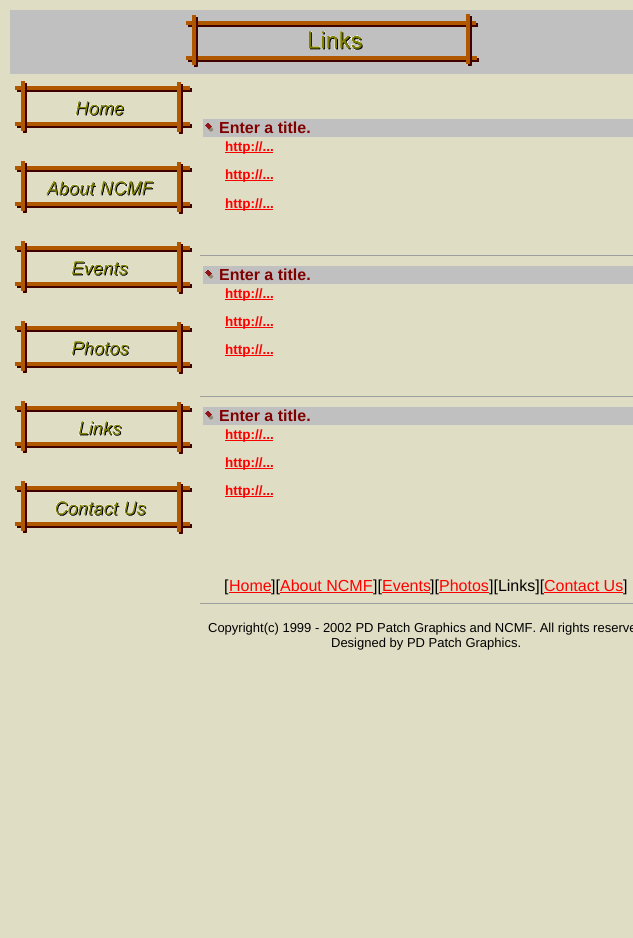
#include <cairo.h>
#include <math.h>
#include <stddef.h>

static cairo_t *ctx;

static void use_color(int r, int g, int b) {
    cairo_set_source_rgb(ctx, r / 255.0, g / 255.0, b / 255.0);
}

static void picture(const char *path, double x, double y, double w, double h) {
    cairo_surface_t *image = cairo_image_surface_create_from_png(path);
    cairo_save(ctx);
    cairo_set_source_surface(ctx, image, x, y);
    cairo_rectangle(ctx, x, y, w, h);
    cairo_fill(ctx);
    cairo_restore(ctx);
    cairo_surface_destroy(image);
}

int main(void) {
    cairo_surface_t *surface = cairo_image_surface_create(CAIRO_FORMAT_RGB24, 633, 938);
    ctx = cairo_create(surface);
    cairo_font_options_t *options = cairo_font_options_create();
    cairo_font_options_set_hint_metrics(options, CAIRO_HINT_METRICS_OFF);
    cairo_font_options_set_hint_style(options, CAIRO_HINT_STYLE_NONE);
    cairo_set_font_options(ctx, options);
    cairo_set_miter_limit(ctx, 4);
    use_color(224, 221, 197);
    cairo_paint(ctx);
    use_color(192, 192, 192);
    cairo_rectangle(ctx, 10, 10, 623, 64);
    cairo_fill(ctx);
    picture("img1.png", 186, 14, 293, 53);
    picture("img2.png", 15, 81, 177, 53);
    picture("img3.png", 15, 161, 177, 53);
    picture("img4.png", 15, 241, 177, 53);
    picture("img5.png", 15, 321, 177, 53);
    picture("img6.png", 15, 401, 177, 53);
    picture("img7.png", 15, 481, 177, 53);
    cairo_rectangle(ctx, 203, 119, 430, 18);
    cairo_fill(ctx);
    picture("img8.png", 205, 123, 10, 10);
    cairo_select_font_face(ctx, "Liberation Sans", CAIRO_FONT_SLANT_NORMAL, CAIRO_FONT_WEIGHT_BOLD);
    cairo_set_font_size(ctx, 16);
    use_color(128, 0, 0);
    cairo_move_to(ctx, 219, 133);
    cairo_show_text(ctx, "Enter a title.");
    use_color(255, 0, 0);
    cairo_rectangle(ctx, 225, 152, 48, 1);
    cairo_fill(ctx);
    cairo_set_font_size(ctx, 13.5);
    cairo_move_to(ctx, 225, 151);
    cairo_show_text(ctx, "http://...");
    cairo_rectangle(ctx, 225, 180, 48, 1);
    cairo_fill(ctx);
    cairo_move_to(ctx, 225, 179);
    cairo_show_text(ctx, "http://...");
    cairo_rectangle(ctx, 225, 209, 48, 1);
    cairo_fill(ctx);
    cairo_move_to(ctx, 225, 208);
    cairo_show_text(ctx, "http://...");
    use_color(159, 159, 159);
    cairo_rectangle(ctx, 200, 255, 433, 1);
    cairo_fill(ctx);
    use_color(192, 192, 192);
    cairo_rectangle(ctx, 203, 266, 430, 18);
    cairo_fill(ctx);
    picture("img8.png", 205, 270, 10, 10);
    cairo_set_font_size(ctx, 16);
    use_color(128, 0, 0);
    cairo_move_to(ctx, 219, 280);
    cairo_show_text(ctx, "Enter a title.");
    use_color(255, 0, 0);
    cairo_rectangle(ctx, 225, 299, 48, 1);
    cairo_fill(ctx);
    cairo_set_font_size(ctx, 13.5);
    cairo_move_to(ctx, 225, 298);
    cairo_show_text(ctx, "http://...");
    cairo_rectangle(ctx, 225, 327, 48, 1);
    cairo_fill(ctx);
    cairo_move_to(ctx, 225, 326);
    cairo_show_text(ctx, "http://...");
    cairo_rectangle(ctx, 225, 355, 48, 1);
    cairo_fill(ctx);
    cairo_move_to(ctx, 225, 354);
    cairo_show_text(ctx, "http://...");
    use_color(159, 159, 159);
    cairo_rectangle(ctx, 200, 396, 433, 1);
    cairo_fill(ctx);
    use_color(192, 192, 192);
    cairo_rectangle(ctx, 203, 407, 430, 18);
    cairo_fill(ctx);
    picture("img8.png", 205, 411, 10, 10);
    cairo_set_font_size(ctx, 16);
    use_color(128, 0, 0);
    cairo_move_to(ctx, 219, 421);
    cairo_show_text(ctx, "Enter a title.");
    use_color(255, 0, 0);
    cairo_rectangle(ctx, 225, 440, 48, 1);
    cairo_fill(ctx);
    cairo_set_font_size(ctx, 13.5);
    cairo_move_to(ctx, 225, 439);
    cairo_show_text(ctx, "http://...");
    cairo_rectangle(ctx, 225, 468, 48, 1);
    cairo_fill(ctx);
    cairo_move_to(ctx, 225, 467);
    cairo_show_text(ctx, "http://...");
    cairo_rectangle(ctx, 225, 496, 48, 1);
    cairo_fill(ctx);
    cairo_move_to(ctx, 225, 495);
    cairo_show_text(ctx, "http://...");
    cairo_select_font_face(ctx, "Liberation Sans", CAIRO_FONT_SLANT_NORMAL, CAIRO_FONT_WEIGHT_NORMAL);
    cairo_set_font_size(ctx, 16);
    use_color(0, 0, 0);
    cairo_move_to(ctx, 224, 591);
    cairo_show_text(ctx, "[");
    use_color(255, 0, 0);
    cairo_move_to(ctx, 229, 591);
    cairo_show_text(ctx, "Home");
    cairo_rectangle(ctx, 229, 592, 42, 1);
    cairo_fill(ctx);
    use_color(0, 0, 0);
    cairo_move_to(ctx, 271, 591);
    cairo_show_text(ctx, "][");
    use_color(255, 0, 0);
    cairo_move_to(ctx, 280, 591);
    cairo_show_text(ctx, "About NCMF");
    cairo_rectangle(ctx, 280, 592, 93, 1);
    cairo_fill(ctx);
    use_color(0, 0, 0);
    cairo_move_to(ctx, 373, 591);
    cairo_show_text(ctx, "][");
    use_color(255, 0, 0);
    cairo_move_to(ctx, 382, 591);
    cairo_show_text(ctx, "Events");
    cairo_rectangle(ctx, 382, 592, 48, 1);
    cairo_fill(ctx);
    use_color(0, 0, 0);
    cairo_move_to(ctx, 430, 591);
    cairo_show_text(ctx, "][");
    use_color(255, 0, 0);
    cairo_move_to(ctx, 439, 591);
    cairo_show_text(ctx, "Photos");
    cairo_rectangle(ctx, 439, 592, 50, 1);
    cairo_fill(ctx);
    use_color(0, 0, 0);
    cairo_move_to(ctx, 489, 591);
    cairo_show_text(ctx, "][Links][");
    use_color(255, 0, 0);
    cairo_move_to(ctx, 544, 591);
    cairo_show_text(ctx, "Contact Us");
    cairo_rectangle(ctx, 544, 592, 79, 1);
    cairo_fill(ctx);
    use_color(0, 0, 0);
    cairo_move_to(ctx, 623, 591);
    cairo_show_text(ctx, "]");
    use_color(159, 159, 159);
    cairo_rectangle(ctx, 200, 603, 433, 1);
    cairo_fill(ctx);
    cairo_set_font_size(ctx, 13);
    use_color(0, 0, 0);
    cairo_move_to(ctx, 208, 632);
    cairo_show_text(ctx, "Copyright(c) 1999 - 2002 PD Patch Graphics and NCMF. All rights reserve");
    cairo_move_to(ctx, 331, 647);
    cairo_show_text(ctx, "Designed by PD Patch Graphics.");
    cairo_surface_write_to_png(surface, "result.png");
    cairo_font_options_destroy(options);
    cairo_destroy(ctx);
    cairo_surface_destroy(surface);
    return 0;
}
